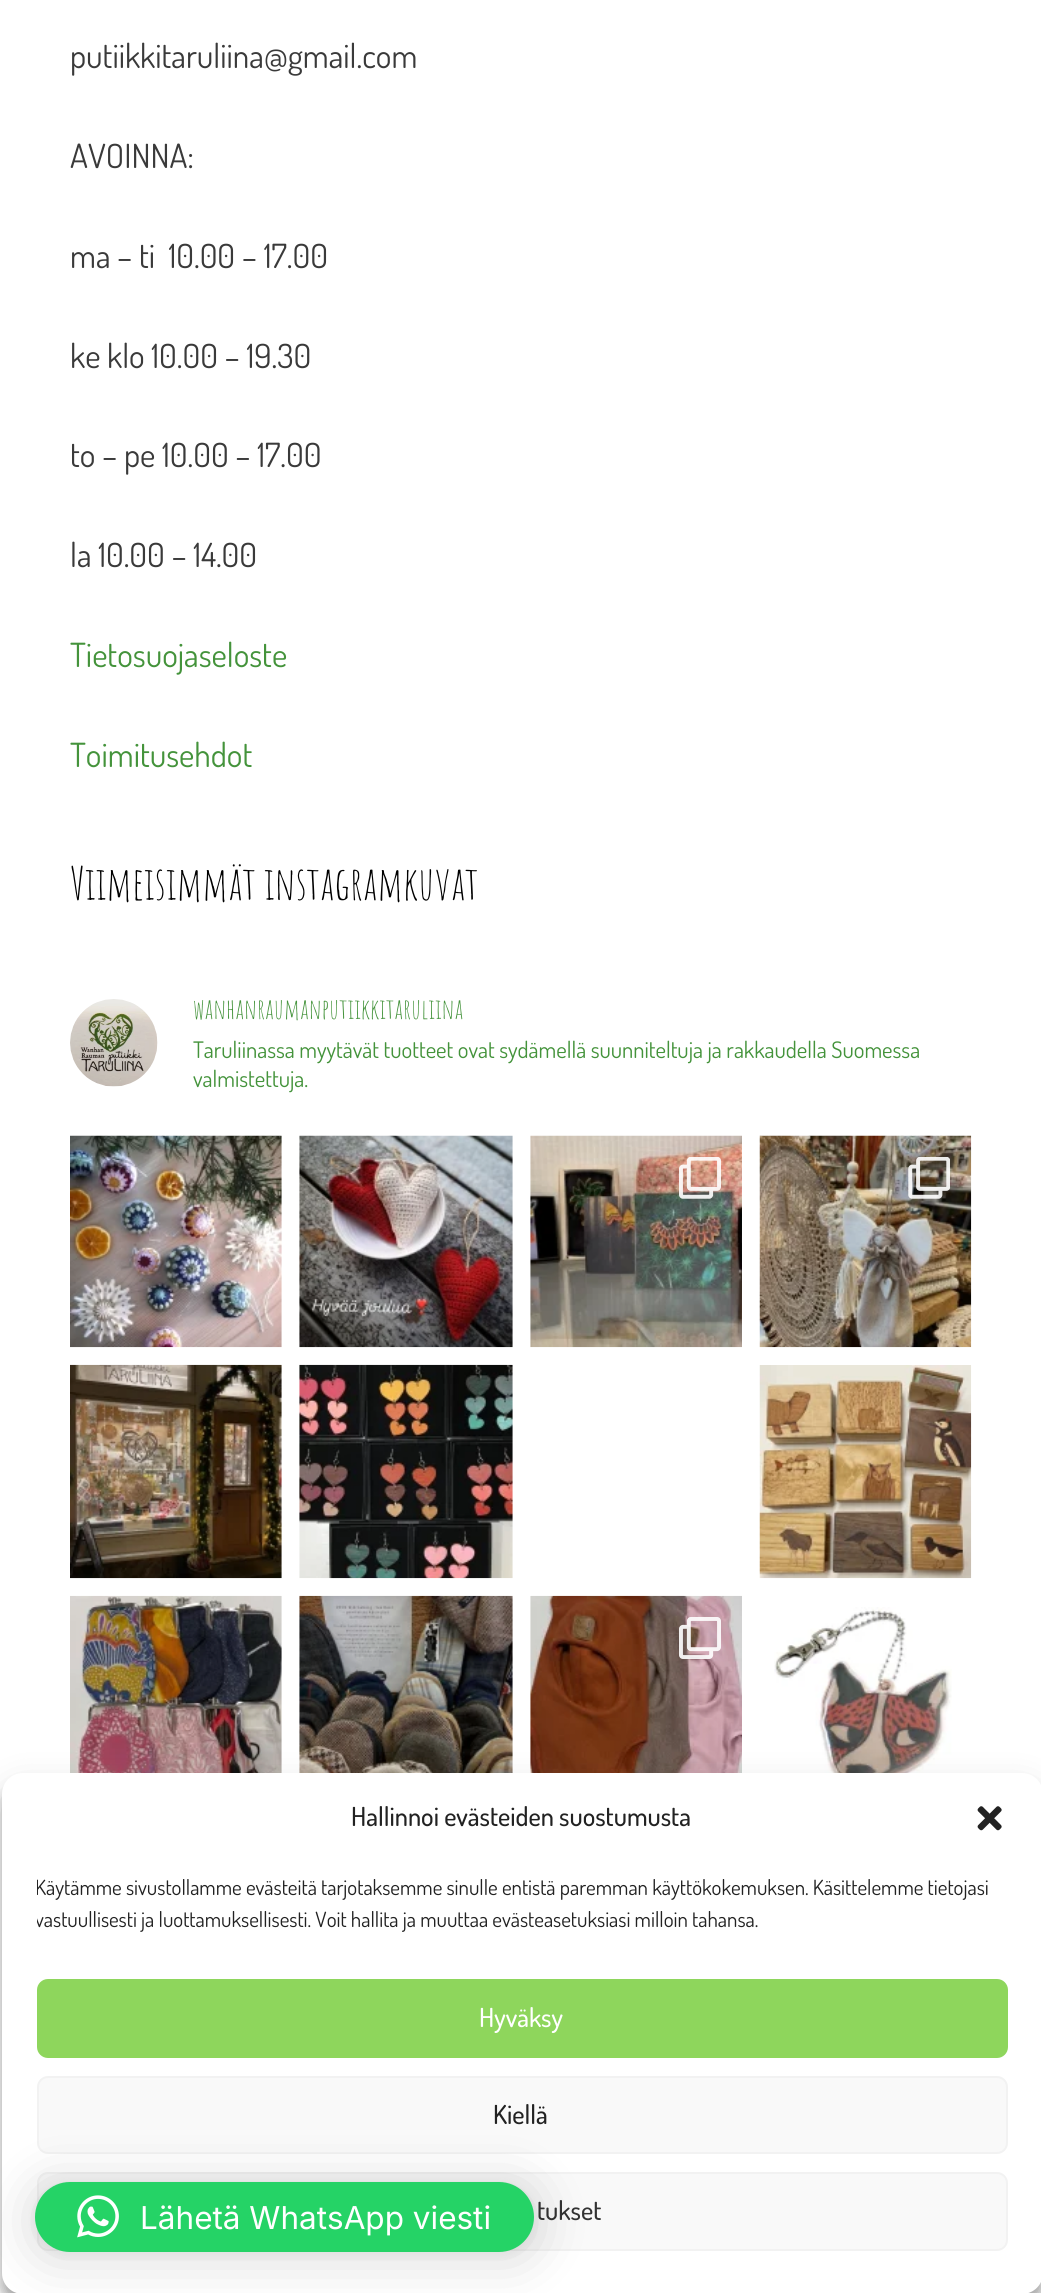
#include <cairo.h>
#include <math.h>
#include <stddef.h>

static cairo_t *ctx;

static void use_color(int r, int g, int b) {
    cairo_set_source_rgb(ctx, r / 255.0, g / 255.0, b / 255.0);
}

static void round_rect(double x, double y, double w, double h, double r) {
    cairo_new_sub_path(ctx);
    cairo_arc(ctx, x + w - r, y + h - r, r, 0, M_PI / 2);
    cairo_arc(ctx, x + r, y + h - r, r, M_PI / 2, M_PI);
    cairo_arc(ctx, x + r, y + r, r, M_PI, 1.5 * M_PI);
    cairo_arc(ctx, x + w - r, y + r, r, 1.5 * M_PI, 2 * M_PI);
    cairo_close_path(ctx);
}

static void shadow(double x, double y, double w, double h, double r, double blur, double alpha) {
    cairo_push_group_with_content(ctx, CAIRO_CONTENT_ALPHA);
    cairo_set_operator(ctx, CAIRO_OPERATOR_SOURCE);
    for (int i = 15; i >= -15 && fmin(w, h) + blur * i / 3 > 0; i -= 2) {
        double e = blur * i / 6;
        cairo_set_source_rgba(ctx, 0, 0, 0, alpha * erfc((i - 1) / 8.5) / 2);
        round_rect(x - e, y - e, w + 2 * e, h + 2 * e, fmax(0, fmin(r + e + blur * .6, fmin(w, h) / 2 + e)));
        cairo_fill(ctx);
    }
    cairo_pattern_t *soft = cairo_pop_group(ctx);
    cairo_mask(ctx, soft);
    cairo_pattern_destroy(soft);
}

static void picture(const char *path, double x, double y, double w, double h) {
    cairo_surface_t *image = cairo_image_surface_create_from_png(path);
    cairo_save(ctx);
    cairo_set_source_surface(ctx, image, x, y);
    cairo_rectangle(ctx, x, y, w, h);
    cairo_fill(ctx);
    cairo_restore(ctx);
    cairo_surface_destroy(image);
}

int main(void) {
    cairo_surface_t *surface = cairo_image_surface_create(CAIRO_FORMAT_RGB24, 1041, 2293);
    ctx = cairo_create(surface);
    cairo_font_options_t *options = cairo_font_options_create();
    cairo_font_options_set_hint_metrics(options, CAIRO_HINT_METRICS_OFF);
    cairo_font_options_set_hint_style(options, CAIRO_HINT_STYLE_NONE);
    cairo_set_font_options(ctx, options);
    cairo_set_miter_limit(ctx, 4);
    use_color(255, 255, 255);
    cairo_paint(ctx);
    cairo_select_font_face(ctx, "Dosis", CAIRO_FONT_SLANT_NORMAL, CAIRO_FONT_WEIGHT_NORMAL);
    cairo_set_font_size(ctx, 33.25);
    use_color(58, 58, 58);
    cairo_move_to(ctx, 70, 68);
    cairo_show_text(ctx, "putiikkitaruliina@gmail.com");
    cairo_move_to(ctx, 70, 168);
    cairo_show_text(ctx, "AVOINNA:");
    cairo_move_to(ctx, 70, 268);
    cairo_show_text(ctx, "ma – ti  10.00 – 17.00");
    cairo_move_to(ctx, 70, 368);
    cairo_show_text(ctx, "ke klo 10.00 – 19.30");
    cairo_move_to(ctx, 70, 467);
    cairo_show_text(ctx, "to – pe 10.00 – 17.00");
    cairo_move_to(ctx, 70, 567);
    cairo_show_text(ctx, "la 10.00 – 14.00");
    use_color(68, 147, 59);
    cairo_move_to(ctx, 70, 667);
    cairo_show_text(ctx, "Tietosuojaseloste");
    cairo_move_to(ctx, 70, 767);
    cairo_show_text(ctx, "Toimitusehdot");
    cairo_select_font_face(ctx, "Amatic SC", CAIRO_FONT_SLANT_NORMAL, CAIRO_FONT_WEIGHT_NORMAL);
    cairo_set_font_size(ctx, 45.5);
    use_color(0, 0, 0);
    cairo_move_to(ctx, 70, 900);
    cairo_show_text(ctx, "Viimeisimmät instagramkuvat");
    picture("img1.png", 70, 999, 88, 88);
    cairo_set_font_size(ctx, 28);
    use_color(68, 147, 59);
    cairo_move_to(ctx, 193, 1019);
    cairo_show_text(ctx, "wanhanraumanputiikkitaruliina");
    cairo_select_font_face(ctx, "Dosis", CAIRO_FONT_SLANT_NORMAL, CAIRO_FONT_WEIGHT_NORMAL);
    cairo_set_font_size(ctx, 22.75);
    cairo_move_to(ctx, 193, 1058);
    cairo_show_text(ctx, "Taruliinassa myytävät tuotteet ovat sydämellä suunniteltuja ja rakkaudella Suomessa");
    cairo_move_to(ctx, 193, 1087);
    cairo_show_text(ctx, "valmistettuja.");
    picture("img2.png", 70, 1135, 212, 213);
    picture("img3.png", 299, 1135, 214, 213);
    picture("img4.png", 530, 1135, 212, 213);
    picture("img5.png", 679, 1157, 42, 42);
    picture("img6.png", 759, 1135, 213, 213);
    picture("img7.png", 908, 1157, 42, 42);
    picture("img8.png", 70, 1364, 212, 215);
    picture("img9.png", 299, 1364, 214, 215);
    picture("img10.png", 759, 1365, 213, 214);
    picture("img11.png", 70, 1595, 212, 178);
    picture("img12.png", 299, 1595, 214, 178);
    picture("img13.png", 530, 1595, 212, 178);
    picture("img14.png", 679, 1617, 42, 42);
    picture("img15.png", 774, 1607, 178, 166);
    use_color(0, 0, 0);
    shadow(2, 1783, 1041, 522, 21, 5, 0.23);
    shadow(2, 1790, 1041, 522, 21, 17.5, 0.19);
    use_color(255, 255, 255);
    round_rect(2, 1773, 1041, 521, 21);
    cairo_fill(ctx);
    cairo_select_font_face(ctx, "Dosis Medium", CAIRO_FONT_SLANT_NORMAL, CAIRO_FONT_WEIGHT_NORMAL);
    cairo_set_font_size(ctx, 26.25);
    use_color(34, 34, 34);
    cairo_move_to(ctx, 351, 1826);
    cairo_show_text(ctx, "Hallinnoi evästeiden suostumusta");
    picture("img16.png", 977, 1806, 25, 25);
    cairo_save(ctx);
    cairo_rectangle(ctx, 37, 1873, 971, 71);
    cairo_clip(ctx);
    cairo_select_font_face(ctx, "Dosis", CAIRO_FONT_SLANT_NORMAL, CAIRO_FONT_WEIGHT_NORMAL);
    cairo_set_font_size(ctx, 21);
    cairo_move_to(ctx, 35, 1895);
    cairo_show_text(ctx, "Käytämme sivustollamme evästeitä tarjotaksemme sinulle entistä paremman käyttökokemuksen. Käsittelemme tietojasi");
    cairo_move_to(ctx, 35, 1927);
    cairo_show_text(ctx, "vastuullisesti ja luottamuksellisesti. Voit hallita ja muuttaa evästeasetuksiasi milloin tahansa.");
    cairo_restore(ctx);
    use_color(142, 214, 92);
    round_rect(38, 1980, 969, 77, 10);
    cairo_fill_preserve(ctx);
    cairo_stroke(ctx);
    use_color(255, 255, 255);
    cairo_move_to(ctx, 479, 2027);
    cairo_show_text(ctx, "Hyväksy");
    use_color(249, 249, 249);
    round_rect(38, 2077, 969, 76, 10);
    cairo_fill_preserve(ctx);
    use_color(242, 242, 242);
    cairo_stroke(ctx);
    use_color(34, 34, 34);
    cairo_move_to(ctx, 493, 2124);
    cairo_show_text(ctx, "Kiellä");
    use_color(249, 249, 249);
    round_rect(38, 2173, 969, 77, 10);
    cairo_fill_preserve(ctx);
    use_color(242, 242, 242);
    cairo_stroke(ctx);
    use_color(51, 51, 51);
    cairo_move_to(ctx, 537, 2220);
    cairo_show_text(ctx, "tukset");
    use_color(0, 0, 0);
    shadow(35, 2186, 499, 70, 35, 28, 0.16);
    shadow(35, 2184, 499, 70, 35, 5, 0.06);
    use_color(37, 211, 102);
    round_rect(35, 2182, 499, 70, 35);
    cairo_fill(ctx);
    picture("img17.png", 77, 2195, 42, 43);
    cairo_select_font_face(ctx, "Inter", CAIRO_FONT_SLANT_NORMAL, CAIRO_FONT_WEIGHT_NORMAL);
    cairo_set_font_size(ctx, 31.5);
    use_color(255, 255, 255);
    cairo_move_to(ctx, 140, 2229);
    cairo_show_text(ctx, "Lähetä WhatsApp viesti");
    cairo_surface_write_to_png(surface, "result.png");
    cairo_font_options_destroy(options);
    cairo_destroy(ctx);
    cairo_surface_destroy(surface);
    return 0;
}
